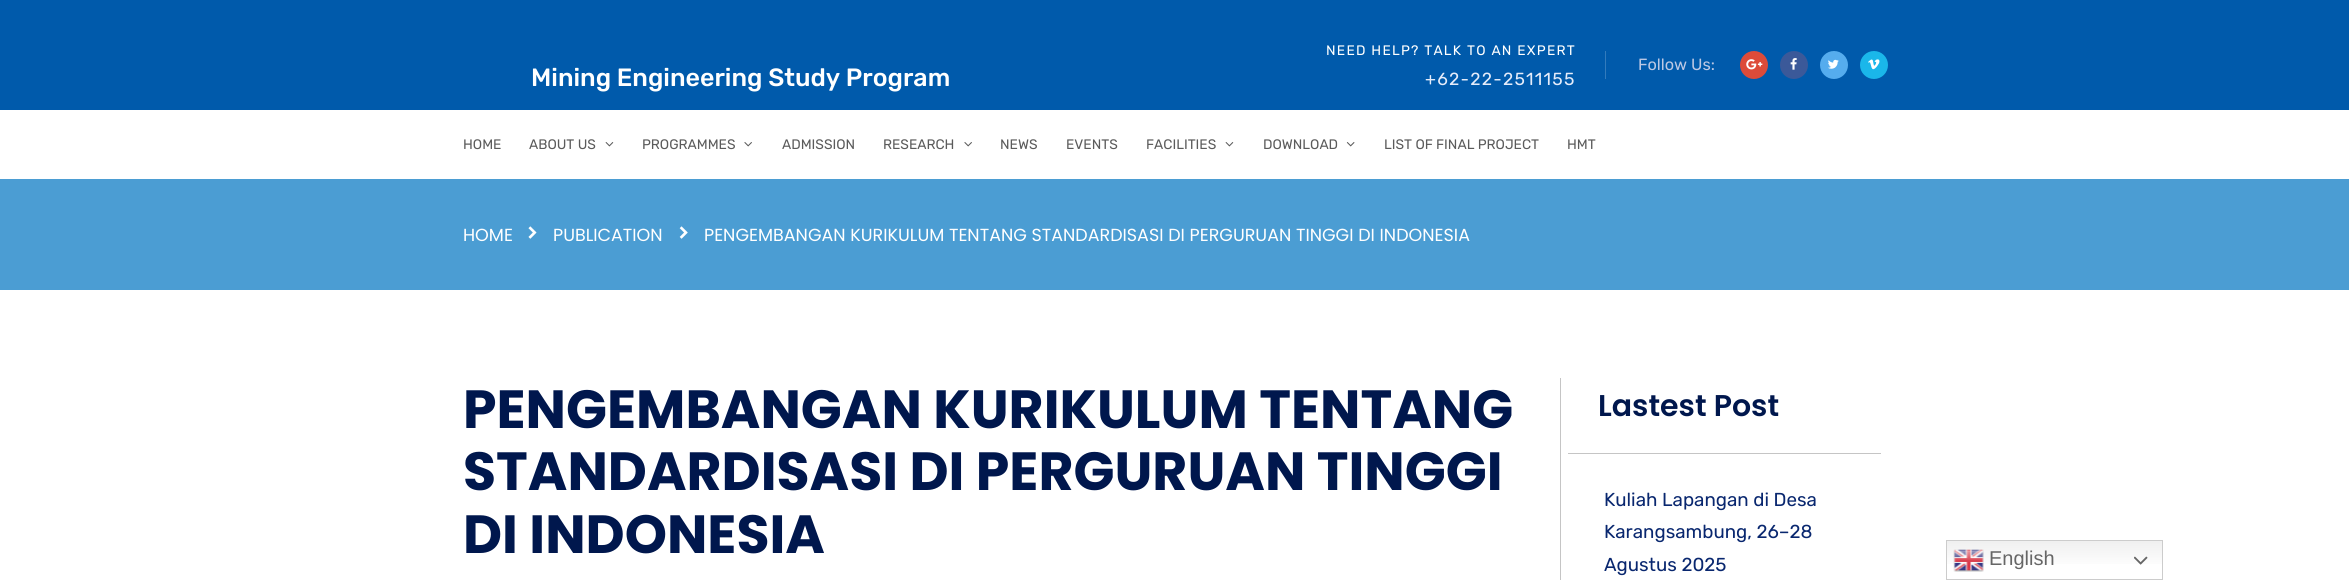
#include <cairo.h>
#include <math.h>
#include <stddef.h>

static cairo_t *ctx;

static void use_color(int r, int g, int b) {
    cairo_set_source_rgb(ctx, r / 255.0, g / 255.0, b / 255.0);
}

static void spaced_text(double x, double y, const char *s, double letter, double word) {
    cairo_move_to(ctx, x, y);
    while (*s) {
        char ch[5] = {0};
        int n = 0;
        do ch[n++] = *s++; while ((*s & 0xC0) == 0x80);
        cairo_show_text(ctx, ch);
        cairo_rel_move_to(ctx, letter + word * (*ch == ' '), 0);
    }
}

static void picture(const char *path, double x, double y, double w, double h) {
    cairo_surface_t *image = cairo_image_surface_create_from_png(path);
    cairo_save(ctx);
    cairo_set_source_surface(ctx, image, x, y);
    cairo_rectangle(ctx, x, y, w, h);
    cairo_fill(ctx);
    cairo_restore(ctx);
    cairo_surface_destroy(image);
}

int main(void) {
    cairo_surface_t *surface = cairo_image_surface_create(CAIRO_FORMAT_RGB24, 2349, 580);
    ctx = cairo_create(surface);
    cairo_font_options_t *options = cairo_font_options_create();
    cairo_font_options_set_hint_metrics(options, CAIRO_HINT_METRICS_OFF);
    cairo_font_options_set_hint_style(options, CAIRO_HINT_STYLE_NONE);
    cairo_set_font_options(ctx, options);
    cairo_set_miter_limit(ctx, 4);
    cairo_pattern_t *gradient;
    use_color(255, 255, 255);
    cairo_paint(ctx);
    use_color(0, 90, 171);
    cairo_rectangle(ctx, 0, 0, 2349, 110);
    cairo_fill(ctx);
    cairo_select_font_face(ctx, "Rubik Medium", CAIRO_FONT_SLANT_NORMAL, CAIRO_FONT_WEIGHT_NORMAL);
    cairo_set_font_size(ctx, 25);
    use_color(255, 255, 255);
    cairo_move_to(ctx, 531, 86);
    cairo_show_text(ctx, "Mining Engineering Study Program");
    cairo_select_font_face(ctx, "Rubik Light", CAIRO_FONT_SLANT_NORMAL, CAIRO_FONT_WEIGHT_NORMAL);
    cairo_set_font_size(ctx, 13.75);
    spaced_text(1326, 55, "NEED HELP? TALK TO AN EXPERT", 1.25, 0);
    cairo_set_font_size(ctx, 17.5);
    use_color(229, 236, 250);
    spaced_text(1425, 85, "+62-22-2511155", 1.25, 0);
    use_color(51, 123, 188);
    cairo_rectangle(ctx, 1605, 51, 1, 28);
    cairo_fill(ctx);
    cairo_set_font_size(ctx, 16.25);
    use_color(188, 200, 228);
    cairo_move_to(ctx, 1638, 70);
    cairo_show_text(ctx, "Follow Us:");
    use_color(221, 75, 57);
    cairo_new_path(ctx);
    cairo_arc(ctx, 1754, 65, 14, 0, 2 * M_PI);
    cairo_fill(ctx);
    picture("img1.png", 1746, 59, 17, 11);
    use_color(59, 89, 153);
    cairo_arc(ctx, 1794, 65, 14, 0, 2 * M_PI);
    cairo_fill(ctx);
    picture("img2.png", 1790, 58, 7, 12);
    use_color(85, 172, 238);
    cairo_arc(ctx, 1834, 65, 14, 0, 2 * M_PI);
    cairo_fill(ctx);
    picture("img3.png", 1828, 59, 11, 10);
    use_color(26, 183, 234);
    cairo_arc(ctx, 1874, 65, 14, 0, 2 * M_PI);
    cairo_fill(ctx);
    picture("img4.png", 1868, 59, 12, 11);
    cairo_set_font_size(ctx, 13.75);
    use_color(91, 91, 91);
    cairo_move_to(ctx, 463, 149);
    cairo_show_text(ctx, "HOME");
    cairo_move_to(ctx, 529, 149);
    cairo_show_text(ctx, "ABOUT US");
    picture("img5.png", 605, 142, 9, 5);
    cairo_move_to(ctx, 642, 149);
    cairo_show_text(ctx, "PROGRAMMES");
    picture("img6.png", 744, 142, 8, 5);
    cairo_move_to(ctx, 782, 149);
    cairo_show_text(ctx, "ADMISSION");
    cairo_move_to(ctx, 883, 149);
    cairo_show_text(ctx, "RESEARCH");
    picture("img6.png", 964, 142, 8, 5);
    cairo_move_to(ctx, 1000, 149);
    cairo_show_text(ctx, "NEWS");
    cairo_move_to(ctx, 1066, 149);
    cairo_show_text(ctx, "EVENTS");
    cairo_move_to(ctx, 1146, 149);
    cairo_show_text(ctx, "FACILITIES");
    picture("img5.png", 1225, 142, 9, 5);
    cairo_move_to(ctx, 1263, 149);
    cairo_show_text(ctx, "DOWNLOAD");
    picture("img7.png", 1346, 142, 9, 5);
    cairo_move_to(ctx, 1384, 149);
    cairo_show_text(ctx, "LIST OF FINAL PROJECT");
    cairo_move_to(ctx, 1567, 149);
    cairo_show_text(ctx, "HMT");
    use_color(75, 157, 211);
    cairo_rectangle(ctx, 0, 179, 2349, 111);
    cairo_fill(ctx);
    cairo_select_font_face(ctx, "Poppins", CAIRO_FONT_SLANT_NORMAL, CAIRO_FONT_WEIGHT_NORMAL);
    cairo_set_font_size(ctx, 17.5);
    use_color(255, 255, 255);
    cairo_move_to(ctx, 463, 241);
    cairo_show_text(ctx, "HOME");
    picture("img8.png", 528, 226, 9, 13);
    cairo_move_to(ctx, 553, 241);
    cairo_show_text(ctx, "PUBLICATION");
    picture("img9.png", 679, 226, 9, 13);
    cairo_move_to(ctx, 704, 241);
    cairo_show_text(ctx, "PENGEMBANGAN KURIKULUM TENTANG STANDARDISASI DI PERGURUAN TINGGI DI INDONESIA");
    cairo_select_font_face(ctx, "Poppins", CAIRO_FONT_SLANT_NORMAL, CAIRO_FONT_WEIGHT_BOLD);
    cairo_set_font_size(ctx, 53.75);
    use_color(0, 23, 77);
    cairo_move_to(ctx, 463, 428);
    cairo_show_text(ctx, "PENGEMBANGAN KURIKULUM TENTANG");
    cairo_move_to(ctx, 463, 490);
    cairo_show_text(ctx, "STANDARDISASI DI PERGURUAN TINGGI");
    cairo_move_to(ctx, 463, 553);
    cairo_show_text(ctx, "DI INDONESIA");
    use_color(197, 197, 197);
    cairo_rectangle(ctx, 1560, 378, 1, 202);
    cairo_fill(ctx);
    cairo_rectangle(ctx, 1568, 453, 313, 1);
    cairo_fill(ctx);
    cairo_select_font_face(ctx, "Poppins SemiBold", CAIRO_FONT_SLANT_NORMAL, CAIRO_FONT_WEIGHT_NORMAL);
    cairo_set_font_size(ctx, 30);
    use_color(0, 23, 77);
    cairo_move_to(ctx, 1598, 416);
    cairo_show_text(ctx, "Lastest Post");
    cairo_select_font_face(ctx, "Rubik Light", CAIRO_FONT_SLANT_NORMAL, CAIRO_FONT_WEIGHT_NORMAL);
    cairo_set_font_size(ctx, 18.75);
    use_color(9, 39, 111);
    cairo_move_to(ctx, 1604, 506);
    cairo_show_text(ctx, "Kuliah Lapangan di Desa");
    cairo_move_to(ctx, 1604, 538);
    cairo_show_text(ctx, "Karangsambung, 26–28");
    cairo_move_to(ctx, 1604, 571);
    cairo_show_text(ctx, "Agustus 2025");
    gradient = cairo_pattern_create_linear(2054, 540, 2054, 580);
    cairo_pattern_add_color_stop_rgba(gradient, 0, 0.937, 0.937, 0.937, 1);
    cairo_pattern_add_color_stop_rgba(gradient, 0.7, 1, 1, 1, 1);
    cairo_set_source(ctx, gradient);
    cairo_pattern_destroy(gradient);
    cairo_rectangle(ctx, 1947, 541, 215, 23);
    cairo_fill(ctx);
    cairo_rectangle(ctx, 1946.5, 540.5, 216, 39);
    use_color(204, 204, 204);
    cairo_set_line_width(ctx, 1);
    cairo_stroke(ctx);
    picture("img10.png", 1953, 549, 31, 23);
    cairo_select_font_face(ctx, "Liberation Sans", CAIRO_FONT_SLANT_NORMAL, CAIRO_FONT_WEIGHT_NORMAL);
    cairo_set_font_size(ctx, 20);
    use_color(102, 102, 102);
    cairo_move_to(ctx, 1989, 565);
    cairo_show_text(ctx, "English");
    picture("img11.png", 2134, 556, 14, 9);
    cairo_surface_write_to_png(surface, "result.png");
    cairo_font_options_destroy(options);
    cairo_destroy(ctx);
    cairo_surface_destroy(surface);
    return 0;
}
